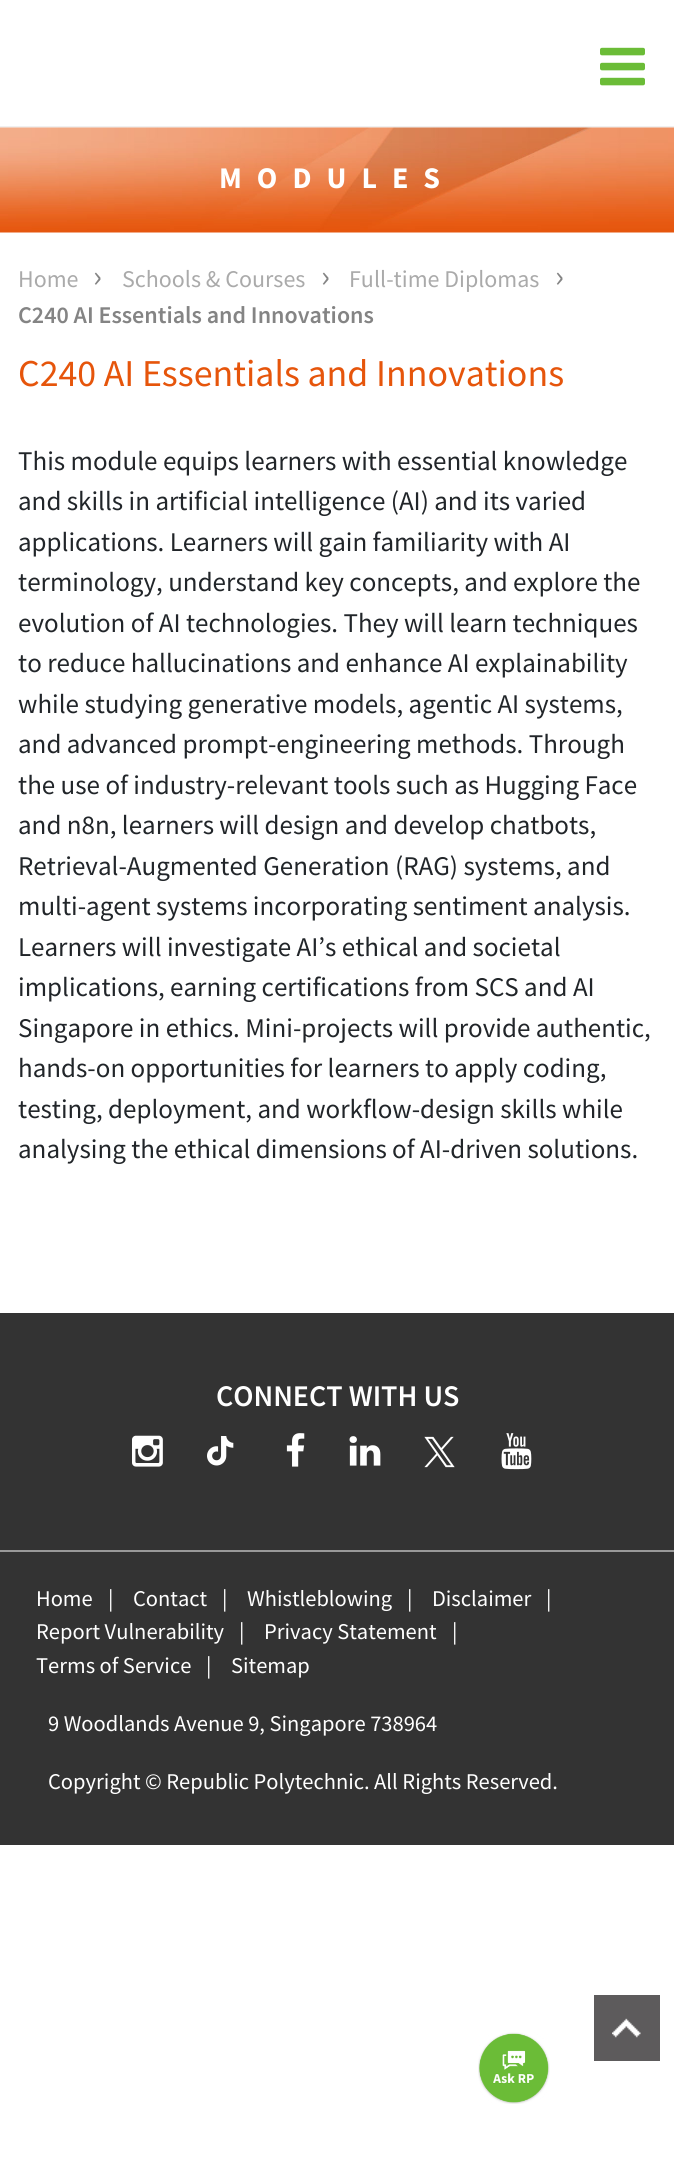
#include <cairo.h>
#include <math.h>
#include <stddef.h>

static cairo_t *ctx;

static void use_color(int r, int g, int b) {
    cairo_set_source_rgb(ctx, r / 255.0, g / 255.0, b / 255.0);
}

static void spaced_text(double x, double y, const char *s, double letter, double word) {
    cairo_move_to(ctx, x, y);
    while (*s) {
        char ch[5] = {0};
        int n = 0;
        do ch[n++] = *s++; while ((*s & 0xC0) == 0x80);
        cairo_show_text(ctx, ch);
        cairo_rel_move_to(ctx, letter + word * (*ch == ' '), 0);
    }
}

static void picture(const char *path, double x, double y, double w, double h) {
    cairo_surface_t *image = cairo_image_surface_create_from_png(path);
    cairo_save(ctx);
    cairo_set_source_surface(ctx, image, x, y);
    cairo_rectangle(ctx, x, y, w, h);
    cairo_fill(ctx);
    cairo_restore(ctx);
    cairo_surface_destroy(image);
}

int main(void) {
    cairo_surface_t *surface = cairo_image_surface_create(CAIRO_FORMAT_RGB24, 674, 2169);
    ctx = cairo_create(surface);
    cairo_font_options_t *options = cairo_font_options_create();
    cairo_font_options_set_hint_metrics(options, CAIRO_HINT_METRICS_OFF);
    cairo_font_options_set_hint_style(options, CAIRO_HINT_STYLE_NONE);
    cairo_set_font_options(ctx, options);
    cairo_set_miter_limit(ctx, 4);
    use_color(255, 255, 255);
    cairo_paint(ctx);
    use_color(240, 240, 240);
    cairo_rectangle(ctx, 0, 126, 674, 2);
    cairo_fill(ctx);
    picture("img1.png", 600, 47, 45, 39);
    picture("img2.png", 0, 127, 674, 106);
    cairo_select_font_face(ctx, "Source Sans Pro", CAIRO_FONT_SLANT_NORMAL, CAIRO_FONT_WEIGHT_BOLD);
    cairo_set_font_size(ctx, 30);
    use_color(255, 255, 255);
    spaced_text(219, 188, "MODULES", 15, 0);
    cairo_select_font_face(ctx, "Source Sans Pro", CAIRO_FONT_SLANT_NORMAL, CAIRO_FONT_WEIGHT_NORMAL);
    cairo_set_font_size(ctx, 24);
    use_color(170, 170, 170);
    cairo_move_to(ctx, 18, 287);
    cairo_show_text(ctx, "Home");
    cairo_set_font_size(ctx, 33);
    use_color(132, 132, 132);
    cairo_move_to(ctx, 93, 287);
    cairo_show_text(ctx, "›");
    cairo_set_font_size(ctx, 24);
    use_color(170, 170, 170);
    cairo_move_to(ctx, 122, 287);
    cairo_show_text(ctx, "Schools & Courses");
    cairo_set_font_size(ctx, 33);
    use_color(132, 132, 132);
    cairo_move_to(ctx, 321, 287);
    cairo_show_text(ctx, "›");
    cairo_set_font_size(ctx, 24);
    use_color(170, 170, 170);
    cairo_move_to(ctx, 349, 287);
    cairo_show_text(ctx, "Full-time Diplomas");
    cairo_set_font_size(ctx, 33);
    use_color(132, 132, 132);
    cairo_move_to(ctx, 555, 287);
    cairo_show_text(ctx, "›");
    cairo_select_font_face(ctx, "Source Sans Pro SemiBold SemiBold", CAIRO_FONT_SLANT_NORMAL, CAIRO_FONT_WEIGHT_NORMAL);
    cairo_set_font_size(ctx, 24);
    cairo_move_to(ctx, 18, 323);
    cairo_show_text(ctx, "C240 AI Essentials and Innovations");
    cairo_select_font_face(ctx, "Source Sans Pro", CAIRO_FONT_SLANT_NORMAL, CAIRO_FONT_WEIGHT_NORMAL);
    cairo_set_font_size(ctx, 37.9);
    use_color(230, 85, 11);
    cairo_move_to(ctx, 18, 386);
    cairo_show_text(ctx, "C240 AI Essentials and Innovations");
    cairo_set_font_size(ctx, 27);
    use_color(33, 37, 41);
    cairo_move_to(ctx, 18, 470);
    cairo_show_text(ctx, "This module equips learners with essential knowledge");
    cairo_move_to(ctx, 18, 510);
    cairo_show_text(ctx, "and skills in artificial intelligence (AI) and its varied");
    cairo_move_to(ctx, 18, 551);
    cairo_show_text(ctx, "applications. Learners will gain familiarity with AI");
    cairo_move_to(ctx, 18, 591);
    cairo_show_text(ctx, "terminology, understand key concepts, and explore the");
    cairo_move_to(ctx, 18, 632);
    cairo_show_text(ctx, "evolution of AI technologies. They will learn techniques");
    cairo_move_to(ctx, 18, 672);
    cairo_show_text(ctx, "to reduce hallucinations and enhance AI explainability");
    cairo_move_to(ctx, 18, 713);
    cairo_show_text(ctx, "while studying generative models, agentic AI systems,");
    cairo_move_to(ctx, 18, 753);
    cairo_show_text(ctx, "and advanced prompt-engineering methods. Through");
    cairo_move_to(ctx, 18, 794);
    cairo_show_text(ctx, "the use of industry-relevant tools such as Hugging Face");
    cairo_move_to(ctx, 18, 834);
    cairo_show_text(ctx, "and n8n, learners will design and develop chatbots,");
    cairo_move_to(ctx, 18, 875);
    cairo_show_text(ctx, "Retrieval-Augmented Generation (RAG) systems, and");
    cairo_move_to(ctx, 18, 915);
    cairo_show_text(ctx, "multi-agent systems incorporating sentiment analysis.");
    cairo_move_to(ctx, 18, 956);
    cairo_show_text(ctx, "Learners will investigate AI’s ethical and societal");
    cairo_move_to(ctx, 18, 996);
    cairo_show_text(ctx, "implications, earning certifications from SCS and AI");
    cairo_move_to(ctx, 18, 1037);
    cairo_show_text(ctx, "Singapore in ethics. Mini-projects will provide authentic,");
    cairo_move_to(ctx, 18, 1077);
    cairo_show_text(ctx, "hands-on opportunities for learners to apply coding,");
    cairo_move_to(ctx, 18, 1118);
    cairo_show_text(ctx, "testing, deployment, and workflow-design skills while");
    cairo_move_to(ctx, 18, 1158);
    cairo_show_text(ctx, "analysing the ethical dimensions of AI-driven solutions.");
    use_color(51, 51, 51);
    cairo_rectangle(ctx, 0, 1313, 674, 532);
    cairo_fill(ctx);
    cairo_select_font_face(ctx, "Source Sans Pro SemiBold SemiBold", CAIRO_FONT_SLANT_NORMAL, CAIRO_FONT_WEIGHT_NORMAL);
    cairo_set_font_size(ctx, 30);
    use_color(255, 255, 255);
    cairo_move_to(ctx, 216, 1406);
    cairo_show_text(ctx, "CONNECT WITH US");
    picture("img3.png", 132, 1435, 31, 32);
    picture("img4.png", 207, 1436, 27, 30);
    picture("img5.png", 286, 1433, 19, 34);
    picture("img6.png", 349, 1436, 32, 30);
    picture("img7.png", 424, 1436, 31, 32);
    picture("img8.png", 501, 1433, 31, 37);
    use_color(153, 153, 153);
    cairo_rectangle(ctx, 0, 1550, 674, 2);
    cairo_fill(ctx);
    cairo_select_font_face(ctx, "Source Sans Pro", CAIRO_FONT_SLANT_NORMAL, CAIRO_FONT_WEIGHT_NORMAL);
    cairo_set_font_size(ctx, 22.5);
    use_color(255, 255, 255);
    cairo_move_to(ctx, 36, 1606);
    cairo_show_text(ctx, "Home");
    cairo_move_to(ctx, 108, 1606);
    cairo_show_text(ctx, "|");
    cairo_move_to(ctx, 133, 1606);
    cairo_show_text(ctx, "Contact");
    cairo_move_to(ctx, 222, 1606);
    cairo_show_text(ctx, "|");
    cairo_move_to(ctx, 247, 1606);
    cairo_show_text(ctx, "Whistleblowing");
    cairo_move_to(ctx, 407, 1606);
    cairo_show_text(ctx, "|");
    cairo_move_to(ctx, 432, 1606);
    cairo_show_text(ctx, "Disclaimer");
    cairo_move_to(ctx, 546, 1606);
    cairo_show_text(ctx, "|");
    cairo_move_to(ctx, 36, 1639);
    cairo_show_text(ctx, "Report Vulnerability");
    cairo_move_to(ctx, 239, 1639);
    cairo_show_text(ctx, "|");
    cairo_move_to(ctx, 264, 1639);
    cairo_show_text(ctx, "Privacy Statement");
    cairo_move_to(ctx, 452, 1639);
    cairo_show_text(ctx, "|");
    cairo_move_to(ctx, 36, 1673);
    cairo_show_text(ctx, "Terms of Service");
    cairo_move_to(ctx, 206, 1673);
    cairo_show_text(ctx, "|");
    cairo_move_to(ctx, 231, 1673);
    cairo_show_text(ctx, "Sitemap");
    cairo_move_to(ctx, 48, 1731);
    cairo_show_text(ctx, "9 Woodlands Avenue 9, Singapore 738964");
    cairo_move_to(ctx, 48, 1789);
    cairo_show_text(ctx, "Copyright © Republic Polytechnic. All Rights Reserved.");
    picture("img9.png", 478, 2032, 72, 72);
    use_color(93, 91, 92);
    cairo_rectangle(ctx, 594, 1995, 66, 66);
    cairo_fill(ctx);
    picture("img10.png", 612, 2018, 29, 20);
    cairo_surface_write_to_png(surface, "result.png");
    cairo_font_options_destroy(options);
    cairo_destroy(ctx);
    cairo_surface_destroy(surface);
    return 0;
}
